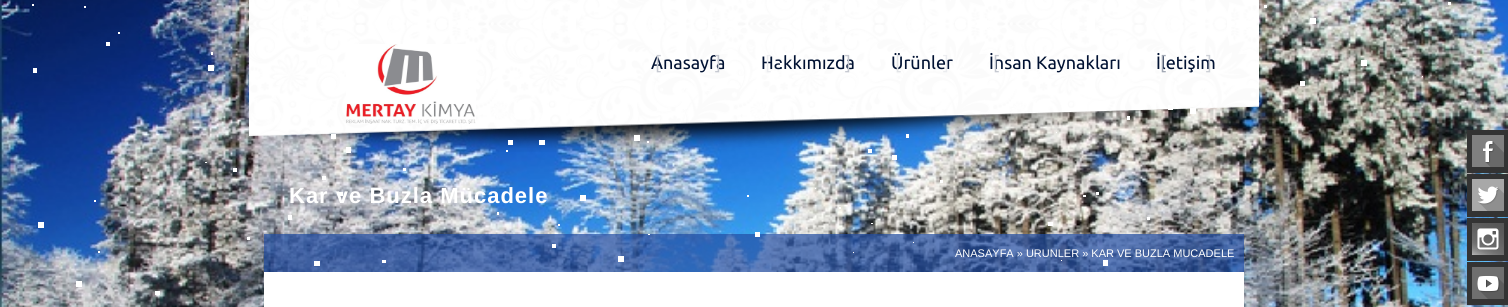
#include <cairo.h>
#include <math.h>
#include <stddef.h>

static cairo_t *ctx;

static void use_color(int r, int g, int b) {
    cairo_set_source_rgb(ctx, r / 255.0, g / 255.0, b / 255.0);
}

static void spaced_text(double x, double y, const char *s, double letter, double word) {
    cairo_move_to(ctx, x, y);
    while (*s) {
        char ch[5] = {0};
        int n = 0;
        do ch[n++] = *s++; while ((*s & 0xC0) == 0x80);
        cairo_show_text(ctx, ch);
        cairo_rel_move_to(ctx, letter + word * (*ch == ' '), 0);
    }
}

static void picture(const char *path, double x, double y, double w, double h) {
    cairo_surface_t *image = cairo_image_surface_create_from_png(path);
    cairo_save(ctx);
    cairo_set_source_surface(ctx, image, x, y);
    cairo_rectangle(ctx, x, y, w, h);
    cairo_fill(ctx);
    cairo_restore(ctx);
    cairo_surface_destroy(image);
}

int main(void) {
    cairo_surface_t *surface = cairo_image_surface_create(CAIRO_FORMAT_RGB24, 1508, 307);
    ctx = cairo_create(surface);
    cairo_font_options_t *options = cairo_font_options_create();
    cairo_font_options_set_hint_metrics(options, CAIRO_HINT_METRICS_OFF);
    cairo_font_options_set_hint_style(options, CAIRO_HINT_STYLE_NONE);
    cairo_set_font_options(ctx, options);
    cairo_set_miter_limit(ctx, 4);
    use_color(255, 255, 255);
    cairo_paint(ctx);
    picture("img1.png", 0, 0, 1508, 307);
    use_color(255, 255, 255);
    cairo_rectangle(ctx, 32, 4, 2, 2);
    cairo_fill(ctx);
    cairo_rectangle(ctx, 84, 6, 2, 2);
    cairo_fill(ctx);
    cairo_rectangle(ctx, 1264, 5, 3, 3);
    cairo_fill(ctx);
    cairo_rectangle(ctx, 1448, 2, 3, 3);
    cairo_fill(ctx);
    picture("img2.png", 249, 0, 1010, 152);
    cairo_rectangle(ctx, 818, 8, 6, 2);
    cairo_fill(ctx);
    cairo_rectangle(ctx, 302, 16, 5, 4);
    cairo_fill(ctx);
    cairo_rectangle(ctx, 1310, 18, 6, 6);
    cairo_fill(ctx);
    cairo_rectangle(ctx, 1080, 31, 4, 1);
    cairo_fill(ctx);
    cairo_rectangle(ctx, 118, 32, 2, 2);
    cairo_fill(ctx);
    cairo_rectangle(ctx, 106, 42, 4, 4);
    cairo_fill(ctx);
    cairo_rectangle(ctx, 211, 52, 2, 3);
    cairo_fill(ctx);
    picture("img3.png", 346, 44, 130, 80);
    cairo_select_font_face(ctx, "Ubuntu", CAIRO_FONT_SLANT_NORMAL, CAIRO_FONT_WEIGHT_NORMAL);
    cairo_set_font_size(ctx, 18);
    use_color(1, 18, 51);
    cairo_move_to(ctx, 651, 69);
    cairo_show_text(ctx, "Anasayfa");
    use_color(198, 201, 209);
    cairo_move_to(ctx, 655, 69);
    cairo_show_text(ctx, "[");
    cairo_move_to(ctx, 715, 69);
    cairo_show_text(ctx, "]");
    use_color(1, 18, 51);
    cairo_move_to(ctx, 761, 69);
    cairo_show_text(ctx, "Hakkımızda");
    use_color(235, 236, 239);
    cairo_move_to(ctx, 765, 69);
    cairo_show_text(ctx, "[");
    use_color(198, 201, 209);
    cairo_move_to(ctx, 845, 69);
    cairo_show_text(ctx, "]");
    use_color(1, 18, 51);
    cairo_move_to(ctx, 891, 69);
    cairo_show_text(ctx, "Ürünler");
    use_color(226, 228, 231);
    cairo_move_to(ctx, 895, 69);
    cairo_show_text(ctx, "[");
    use_color(235, 236, 239);
    cairo_move_to(ctx, 943, 69);
    cairo_show_text(ctx, "]");
    use_color(1, 18, 51);
    cairo_move_to(ctx, 989, 69);
    cairo_show_text(ctx, "İnsan Kaynakları");
    use_color(198, 201, 209);
    cairo_move_to(ctx, 993, 69);
    cairo_show_text(ctx, "[");
    use_color(1, 18, 51);
    cairo_move_to(ctx, 1156, 69);
    cairo_show_text(ctx, "İletişim");
    use_color(162, 168, 180);
    cairo_move_to(ctx, 1160, 69);
    cairo_show_text(ctx, "[");
    use_color(204, 207, 213);
    cairo_move_to(ctx, 1206, 69);
    cairo_show_text(ctx, "]");
    use_color(255, 255, 255);
    cairo_rectangle(ctx, 264, 272, 980, 35);
    cairo_fill(ctx);
    cairo_select_font_face(ctx, "Liberation Sans", CAIRO_FONT_SLANT_NORMAL, CAIRO_FONT_WEIGHT_BOLD);
    cairo_set_font_size(ctx, 22);
    spaced_text(289, 203, "Kar ve Buzla Mücadele", 1, 0);
    cairo_set_source_rgba(ctx, 0.129, 0.306, 0.647, 0.7);
    cairo_rectangle(ctx, 264, 234, 980, 38);
    cairo_fill(ctx);
    cairo_select_font_face(ctx, "Liberation Sans", CAIRO_FONT_SLANT_NORMAL, CAIRO_FONT_WEIGHT_NORMAL);
    cairo_set_font_size(ctx, 11);
    use_color(255, 255, 255);
    cairo_move_to(ctx, 955, 257);
    cairo_show_text(ctx, "ANASAYFA » URUNLER » KAR VE BUZLA MUCADELE");
    cairo_rectangle(ctx, 1361, 60, 6, 6);
    cairo_fill(ctx);
    cairo_rectangle(ctx, 33, 68, 4, 5);
    cairo_fill(ctx);
    cairo_rectangle(ctx, 208, 65, 6, 6);
    cairo_fill(ctx);
    cairo_rectangle(ctx, 780, 63, 2, 4);
    cairo_fill(ctx);
    cairo_rectangle(ctx, 963, 64, 1, 3);
    cairo_fill(ctx);
    cairo_rectangle(ctx, 1422, 76, 1, 1);
    cairo_fill(ctx);
    cairo_rectangle(ctx, 1300, 81, 5, 5);
    cairo_fill(ctx);
    cairo_rectangle(ctx, 705, 90, 5, 1);
    cairo_fill(ctx);
    cairo_rectangle(ctx, 1168, 105, 5, 5);
    cairo_fill(ctx);
    cairo_rectangle(ctx, 1190, 108, 6, 6);
    cairo_fill(ctx);
    cairo_rectangle(ctx, 1127, 116, 3, 4);
    cairo_fill(ctx);
    cairo_rectangle(ctx, 1056, 132, 1, 1);
    cairo_fill(ctx);
    use_color(51, 51, 51);
    cairo_rectangle(ctx, 1467, 130, 41, 43);
    cairo_fill(ctx);
    picture("img4.png", 1472, 135, 32, 32);
    cairo_rectangle(ctx, 1467, 174, 41, 43);
    cairo_fill(ctx);
    picture("img5.png", 1472, 179, 32, 32);
    cairo_rectangle(ctx, 1467, 218, 41, 43);
    cairo_fill(ctx);
    picture("img6.png", 1472, 223, 32, 32);
    cairo_rectangle(ctx, 1467, 262, 41, 43);
    cairo_fill(ctx);
    picture("img7.png", 1472, 267, 32, 32);
    use_color(255, 255, 255);
    cairo_rectangle(ctx, 331, 134, 5, 5);
    cairo_fill(ctx);
    cairo_rectangle(ctx, 634, 135, 6, 6);
    cairo_fill(ctx);
    cairo_rectangle(ctx, 906, 134, 3, 4);
    cairo_fill(ctx);
    cairo_rectangle(ctx, 508, 140, 5, 5);
    cairo_fill(ctx);
    cairo_rectangle(ctx, 539, 140, 6, 5);
    cairo_fill(ctx);
    cairo_rectangle(ctx, 647, 141, 2, 2);
    cairo_fill(ctx);
    cairo_rectangle(ctx, 346, 147, 5, 6);
    cairo_fill(ctx);
    cairo_rectangle(ctx, 506, 150, 2, 2);
    cairo_fill(ctx);
    cairo_rectangle(ctx, 868, 149, 4, 4);
    cairo_fill(ctx);
    cairo_rectangle(ctx, 892, 155, 5, 5);
    cairo_fill(ctx);
    cairo_rectangle(ctx, 205, 162, 2, 1);
    cairo_fill(ctx);
    cairo_rectangle(ctx, 233, 168, 4, 4);
    cairo_fill(ctx);
    cairo_rectangle(ctx, 403, 168, 3, 3);
    cairo_fill(ctx);
    cairo_rectangle(ctx, 322, 176, 4, 4);
    cairo_fill(ctx);
    cairo_rectangle(ctx, 940, 180, 3, 3);
    cairo_fill(ctx);
    cairo_rectangle(ctx, 815, 188, 1, 1);
    cairo_fill(ctx);
    cairo_rectangle(ctx, 339, 192, 4, 4);
    cairo_fill(ctx);
    cairo_rectangle(ctx, 1096, 192, 3, 3);
    cairo_fill(ctx);
    cairo_rectangle(ctx, 580, 195, 6, 6);
    cairo_fill(ctx);
    cairo_rectangle(ctx, 747, 195, 2, 2);
    cairo_fill(ctx);
    cairo_rectangle(ctx, 1083, 195, 3, 2);
    cairo_fill(ctx);
    cairo_rectangle(ctx, 94, 200, 2, 2);
    cairo_fill(ctx);
    cairo_rectangle(ctx, 839, 207, 2, 2);
    cairo_fill(ctx);
    cairo_rectangle(ctx, 497, 212, 2, 3);
    cairo_fill(ctx);
    cairo_rectangle(ctx, 288, 215, 4, 5);
    cairo_fill(ctx);
    cairo_rectangle(ctx, 1147, 217, 3, 3);
    cairo_fill(ctx);
    cairo_rectangle(ctx, 38, 222, 6, 6);
    cairo_fill(ctx);
    cairo_rectangle(ctx, 871, 223, 2, 1);
    cairo_fill(ctx);
    cairo_rectangle(ctx, 1048, 222, 5, 4);
    cairo_fill(ctx);
    cairo_rectangle(ctx, 558, 224, 2, 2);
    cairo_fill(ctx);
    cairo_rectangle(ctx, 648, 234, 2, 1);
    cairo_fill(ctx);
    cairo_rectangle(ctx, 755, 232, 5, 5);
    cairo_fill(ctx);
    cairo_rectangle(ctx, 247, 237, 3, 3);
    cairo_fill(ctx);
    cairo_rectangle(ctx, 913, 242, 1, 1);
    cairo_fill(ctx);
    cairo_rectangle(ctx, 552, 244, 4, 4);
    cairo_fill(ctx);
    cairo_rectangle(ctx, 98, 251, 2, 2);
    cairo_fill(ctx);
    cairo_rectangle(ctx, 853, 252, 1, 1);
    cairo_fill(ctx);
    cairo_rectangle(ctx, 314, 261, 6, 5);
    cairo_fill(ctx);
    cairo_rectangle(ctx, 382, 260, 4, 3);
    cairo_fill(ctx);
    cairo_rectangle(ctx, 618, 256, 6, 6);
    cairo_fill(ctx);
    cairo_rectangle(ctx, 1061, 260, 1, 1);
    cairo_fill(ctx);
    cairo_rectangle(ctx, 1103, 260, 5, 6);
    cairo_fill(ctx);
    cairo_rectangle(ctx, 76, 281, 6, 6);
    cairo_fill(ctx);
    cairo_rectangle(ctx, 155, 291, 5, 4);
    cairo_fill(ctx);
    cairo_surface_write_to_png(surface, "result.png");
    cairo_font_options_destroy(options);
    cairo_destroy(ctx);
    cairo_surface_destroy(surface);
    return 0;
}
